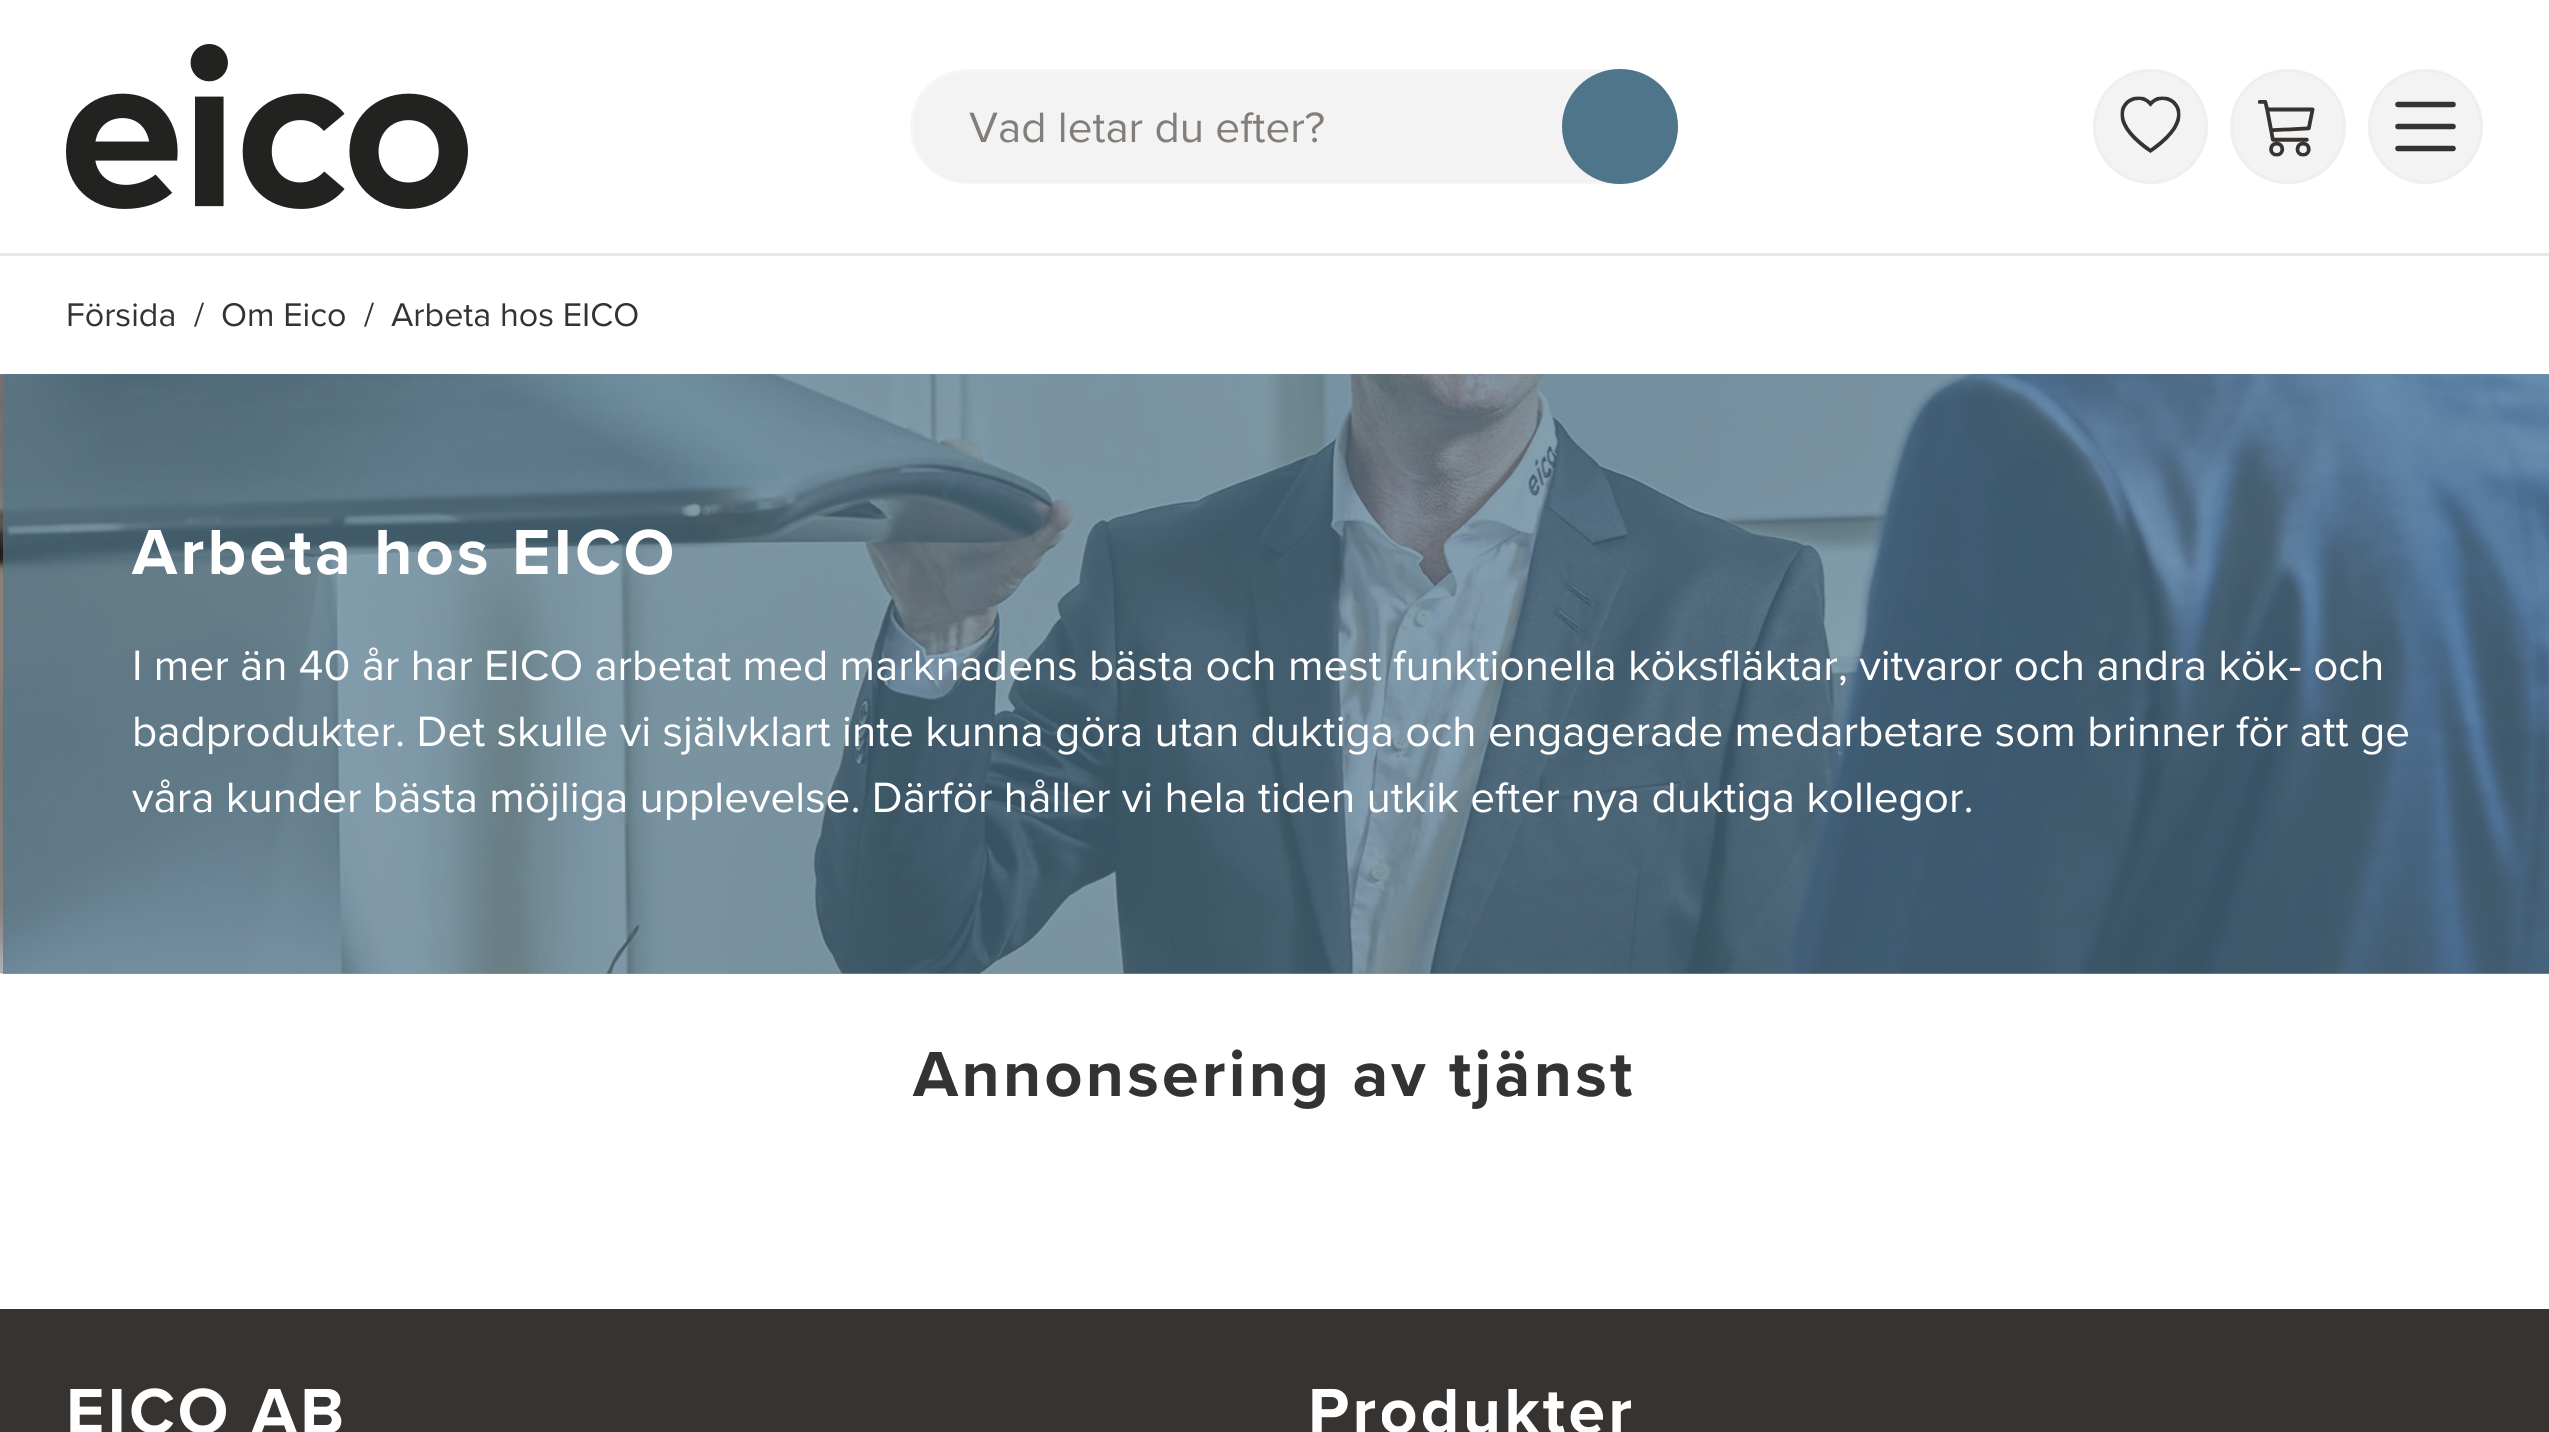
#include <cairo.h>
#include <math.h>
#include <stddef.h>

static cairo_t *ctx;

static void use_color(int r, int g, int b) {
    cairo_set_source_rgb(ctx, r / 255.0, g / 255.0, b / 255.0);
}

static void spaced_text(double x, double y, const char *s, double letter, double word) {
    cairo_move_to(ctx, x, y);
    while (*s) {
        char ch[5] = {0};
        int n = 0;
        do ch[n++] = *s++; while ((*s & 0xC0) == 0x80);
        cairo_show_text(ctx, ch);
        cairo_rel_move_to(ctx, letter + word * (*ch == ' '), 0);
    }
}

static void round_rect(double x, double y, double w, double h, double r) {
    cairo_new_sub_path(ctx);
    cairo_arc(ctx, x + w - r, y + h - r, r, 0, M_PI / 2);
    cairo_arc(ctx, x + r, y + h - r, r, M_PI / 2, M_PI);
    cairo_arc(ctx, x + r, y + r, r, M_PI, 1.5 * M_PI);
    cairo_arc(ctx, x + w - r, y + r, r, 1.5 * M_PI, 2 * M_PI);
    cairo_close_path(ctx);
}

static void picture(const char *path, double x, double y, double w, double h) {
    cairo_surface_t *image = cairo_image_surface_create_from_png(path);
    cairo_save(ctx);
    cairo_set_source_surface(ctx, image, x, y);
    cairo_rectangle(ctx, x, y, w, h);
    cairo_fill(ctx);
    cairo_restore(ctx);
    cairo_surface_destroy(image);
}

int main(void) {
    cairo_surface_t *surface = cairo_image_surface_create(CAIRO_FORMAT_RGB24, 2549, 1432);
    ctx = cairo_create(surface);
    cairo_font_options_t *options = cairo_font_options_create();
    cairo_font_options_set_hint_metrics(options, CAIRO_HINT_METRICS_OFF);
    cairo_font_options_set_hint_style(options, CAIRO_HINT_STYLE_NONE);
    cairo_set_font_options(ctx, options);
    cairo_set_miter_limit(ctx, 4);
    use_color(255, 255, 255);
    cairo_paint(ctx);
    use_color(132, 158, 174);
    cairo_rectangle(ctx, 3, 973, 2546, 1);
    cairo_fill(ctx);
    use_color(232, 232, 232);
    cairo_rectangle(ctx, 0, 253, 2549, 3);
    cairo_fill(ctx);
    picture("img1.png", 66, 44, 402, 165);
    use_color(243, 243, 243);
    round_rect(913, 72, 762, 110, 55);
    cairo_fill(ctx);
    round_rect(911.5, 70.5, 765, 112, 56);
    cairo_set_source_rgba(ctx, 0.91, 0.91, 0.91, 0.4);
    cairo_set_line_width(ctx, 3);
    cairo_stroke(ctx);
    cairo_select_font_face(ctx, "Proxima Nova", CAIRO_FONT_SLANT_NORMAL, CAIRO_FONT_WEIGHT_NORMAL);
    cairo_set_font_size(ctx, 44);
    use_color(131, 126, 122);
    cairo_move_to(ctx, 969, 142);
    cairo_show_text(ctx, "Vad letar du efter?");
    use_color(79, 117, 139);
    round_rect(1562, 69, 116, 115, 57.5);
    cairo_fill(ctx);
    use_color(243, 243, 243);
    cairo_arc(ctx, 2150.5, 126.5, 57.5, 0, 2 * M_PI);
    cairo_fill(ctx);
    cairo_arc(ctx, 2150.5, 126.5, 56, 0, 2 * M_PI);
    cairo_set_source_rgba(ctx, 0.91, 0.91, 0.91, 0.4);
    cairo_stroke(ctx);
    picture("img2.png", 2120, 96, 61, 57);
    use_color(243, 243, 243);
    round_rect(2230, 69, 116, 115, 57.5);
    cairo_fill(ctx);
    round_rect(2231.5, 70.5, 113, 112, 56);
    cairo_set_source_rgba(ctx, 0.91, 0.91, 0.91, 0.4);
    cairo_stroke(ctx);
    picture("img3.png", 2258, 100, 57, 57);
    use_color(243, 243, 243);
    cairo_arc(ctx, 2425.5, 126.5, 57.5, 0, 2 * M_PI);
    cairo_fill(ctx);
    cairo_arc(ctx, 2425.5, 126.5, 56, 0, 2 * M_PI);
    cairo_set_source_rgba(ctx, 0.91, 0.91, 0.91, 0.4);
    cairo_stroke(ctx);
    picture("img4.png", 2395, 101, 61, 51);
    cairo_set_font_size(ctx, 34);
    use_color(51, 51, 51);
    cairo_move_to(ctx, 66, 326);
    cairo_show_text(ctx, "Försida");
    cairo_move_to(ctx, 194, 326);
    cairo_show_text(ctx, "/");
    cairo_move_to(ctx, 221, 326);
    cairo_show_text(ctx, "Om Eico");
    cairo_move_to(ctx, 364, 326);
    cairo_show_text(ctx, "/");
    cairo_move_to(ctx, 391, 326);
    cairo_show_text(ctx, "Arbeta hos EICO");
    picture("img5.png", 0, 374, 2549, 600);
    cairo_select_font_face(ctx, "Proxima Nova", CAIRO_FONT_SLANT_NORMAL, CAIRO_FONT_WEIGHT_BOLD);
    cairo_set_font_size(ctx, 66);
    use_color(255, 255, 255);
    spaced_text(132, 574, "Arbeta hos EICO", 3.3, 0);
    cairo_select_font_face(ctx, "Proxima Nova", CAIRO_FONT_SLANT_NORMAL, CAIRO_FONT_WEIGHT_NORMAL);
    cairo_set_font_size(ctx, 44);
    cairo_move_to(ctx, 132, 680);
    cairo_show_text(ctx, "I mer än 40 år har EICO arbetat med marknadens bästa och mest funktionella köksfläktar, vitvaror och andra kök- och");
    cairo_move_to(ctx, 132, 746);
    cairo_show_text(ctx, "badprodukter. Det skulle vi självklart inte kunna göra utan duktiga och engagerade medarbetare som brinner för att ge");
    cairo_move_to(ctx, 132, 812);
    cairo_show_text(ctx, "våra kunder bästa möjliga upplevelse. Därför håller vi hela tiden utkik efter nya duktiga kollegor.");
    cairo_select_font_face(ctx, "Proxima Nova", CAIRO_FONT_SLANT_NORMAL, CAIRO_FONT_WEIGHT_BOLD);
    cairo_set_font_size(ctx, 66);
    use_color(51, 51, 51);
    spaced_text(913, 1096, "Annonsering av tjänst", 3.3, 0);
    use_color(54, 51, 49);
    cairo_rectangle(ctx, 0, 1309, 2549, 123);
    cairo_fill(ctx);
    use_color(255, 255, 255);
    spaced_text(66, 1433, "EICO AB", 3.3, 0);
    spaced_text(1308, 1433, "Produkter", 3.3, 0);
    cairo_surface_write_to_png(surface, "result.png");
    cairo_font_options_destroy(options);
    cairo_destroy(ctx);
    cairo_surface_destroy(surface);
    return 0;
}
